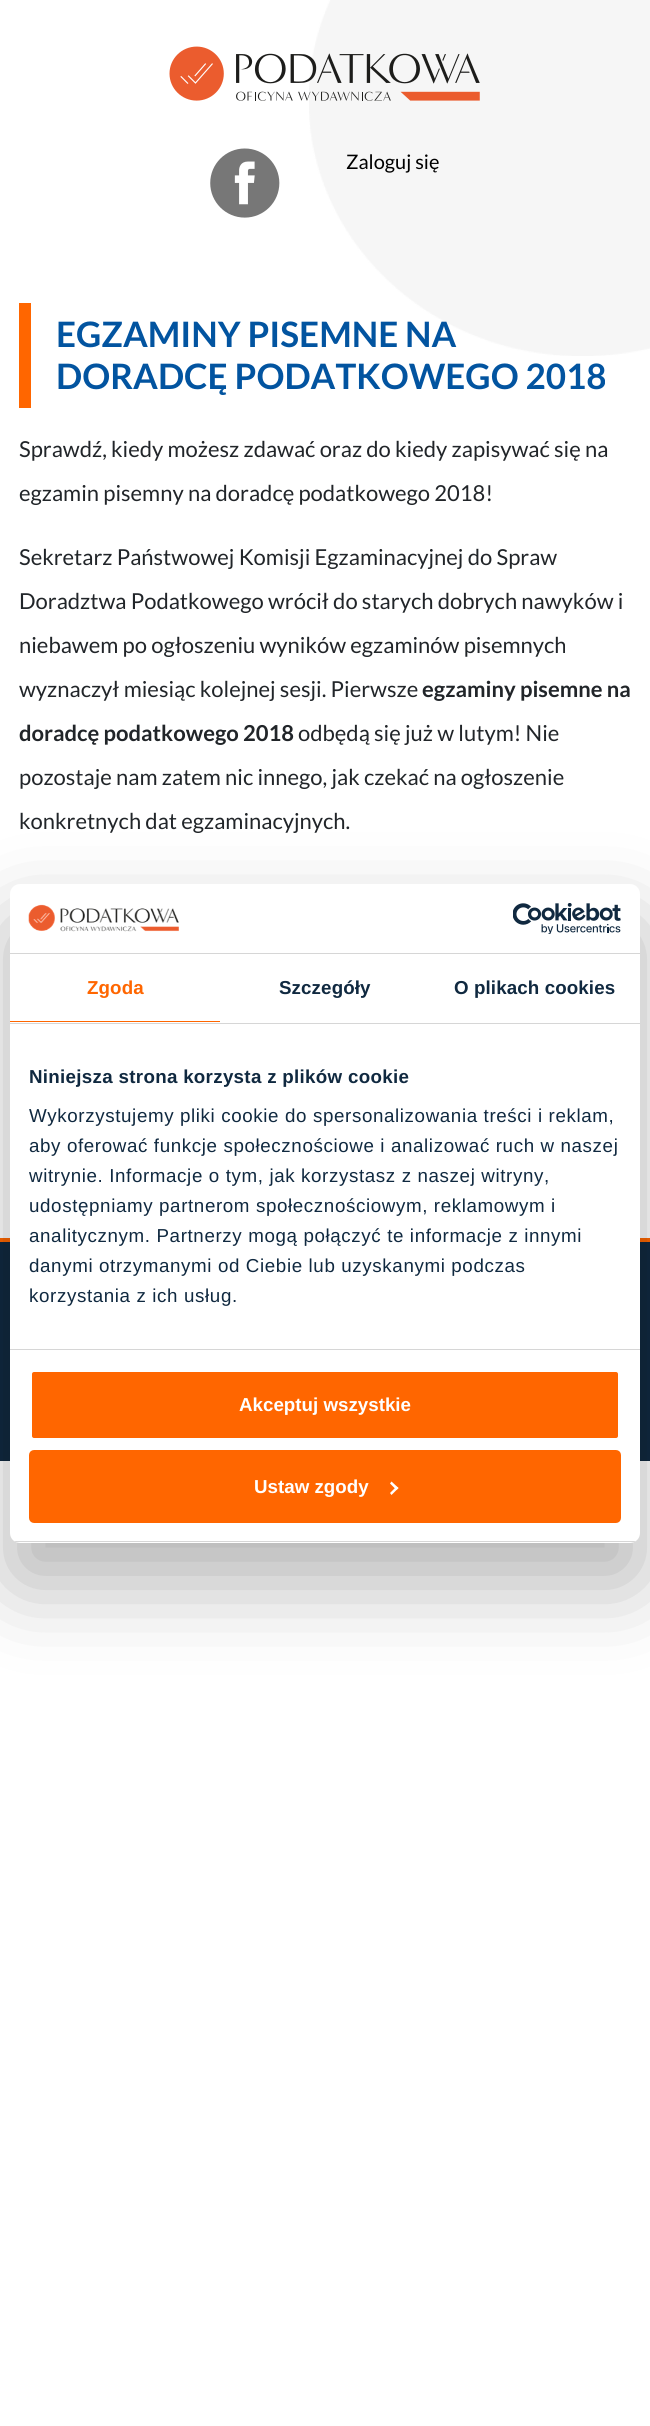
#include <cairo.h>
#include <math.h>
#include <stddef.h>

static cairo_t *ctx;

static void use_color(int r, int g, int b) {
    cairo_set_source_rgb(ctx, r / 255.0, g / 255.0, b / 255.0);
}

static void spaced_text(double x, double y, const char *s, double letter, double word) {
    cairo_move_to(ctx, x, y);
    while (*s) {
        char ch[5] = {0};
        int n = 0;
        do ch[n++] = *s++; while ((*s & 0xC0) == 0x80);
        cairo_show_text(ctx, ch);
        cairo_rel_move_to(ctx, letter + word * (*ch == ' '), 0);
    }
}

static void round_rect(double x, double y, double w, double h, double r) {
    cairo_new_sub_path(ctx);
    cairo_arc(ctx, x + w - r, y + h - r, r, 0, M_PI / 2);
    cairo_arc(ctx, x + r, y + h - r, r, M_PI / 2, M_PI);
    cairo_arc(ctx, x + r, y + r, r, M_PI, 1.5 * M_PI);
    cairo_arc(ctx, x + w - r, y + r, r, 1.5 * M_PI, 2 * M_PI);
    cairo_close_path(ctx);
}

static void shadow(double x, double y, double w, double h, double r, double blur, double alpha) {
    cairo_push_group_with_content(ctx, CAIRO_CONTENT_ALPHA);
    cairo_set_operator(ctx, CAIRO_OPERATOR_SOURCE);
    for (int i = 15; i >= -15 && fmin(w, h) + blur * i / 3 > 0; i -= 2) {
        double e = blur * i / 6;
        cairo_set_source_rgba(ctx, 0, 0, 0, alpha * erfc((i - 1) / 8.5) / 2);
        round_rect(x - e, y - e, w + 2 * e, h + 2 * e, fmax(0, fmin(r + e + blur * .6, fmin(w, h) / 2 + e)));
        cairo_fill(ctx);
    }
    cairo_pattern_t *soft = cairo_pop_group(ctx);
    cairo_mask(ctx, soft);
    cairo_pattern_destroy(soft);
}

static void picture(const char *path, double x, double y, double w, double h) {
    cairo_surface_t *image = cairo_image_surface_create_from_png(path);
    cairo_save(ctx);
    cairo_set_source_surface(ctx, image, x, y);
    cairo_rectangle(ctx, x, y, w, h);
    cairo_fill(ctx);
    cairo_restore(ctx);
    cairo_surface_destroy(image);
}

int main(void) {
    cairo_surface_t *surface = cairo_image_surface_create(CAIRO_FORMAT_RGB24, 650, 2426);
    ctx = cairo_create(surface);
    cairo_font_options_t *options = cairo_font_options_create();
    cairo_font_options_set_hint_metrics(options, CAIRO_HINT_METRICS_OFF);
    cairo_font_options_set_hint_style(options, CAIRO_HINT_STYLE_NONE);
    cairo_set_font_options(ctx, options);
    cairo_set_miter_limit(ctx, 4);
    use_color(255, 255, 255);
    cairo_paint(ctx);
    picture("img1.png", 309, 0, 341, 356);
    picture("img2.png", 169, 46, 311, 55);
    picture("img3.png", 210, 148, 70, 70);
    cairo_select_font_face(ctx, "Lato", CAIRO_FONT_SLANT_NORMAL, CAIRO_FONT_WEIGHT_NORMAL);
    cairo_set_font_size(ctx, 20);
    use_color(0, 0, 0);
    cairo_move_to(ctx, 346, 169);
    cairo_show_text(ctx, "Zaloguj się");
    use_color(255, 102, 0);
    cairo_rectangle(ctx, 19, 303, 12, 105);
    cairo_fill(ctx);
    cairo_select_font_face(ctx, "Lato", CAIRO_FONT_SLANT_NORMAL, CAIRO_FONT_WEIGHT_BOLD);
    cairo_set_font_size(ctx, 35);
    use_color(2, 84, 160);
    cairo_move_to(ctx, 56, 347);
    cairo_show_text(ctx, "EGZAMINY PISEMNE NA");
    cairo_move_to(ctx, 56, 389);
    cairo_show_text(ctx, "DORADCĘ PODATKOWEGO 2018");
    cairo_select_font_face(ctx, "Lato", CAIRO_FONT_SLANT_NORMAL, CAIRO_FONT_WEIGHT_NORMAL);
    cairo_set_font_size(ctx, 22);
    use_color(33, 37, 41);
    cairo_move_to(ctx, 19, 457);
    cairo_show_text(ctx, "Sprawdź, kiedy możesz zdawać oraz do kiedy zapisywać się na");
    cairo_move_to(ctx, 19, 501);
    cairo_show_text(ctx, "egzamin pisemny na doradcę podatkowego 2018!");
    cairo_move_to(ctx, 19, 565);
    cairo_show_text(ctx, "Sekretarz Państwowej Komisji Egzaminacyjnej do Spraw");
    cairo_move_to(ctx, 19, 609);
    cairo_show_text(ctx, "Doradztwa Podatkowego wrócił do starych dobrych nawyków i");
    cairo_move_to(ctx, 19, 653);
    cairo_show_text(ctx, "niebawem po ogłoszeniu wyników egzaminów pisemnych");
    cairo_move_to(ctx, 19, 697);
    cairo_show_text(ctx, "wyznaczył miesiąc kolejnej sesji. Pierwsze");
    cairo_select_font_face(ctx, "Lato", CAIRO_FONT_SLANT_NORMAL, CAIRO_FONT_WEIGHT_BOLD);
    cairo_move_to(ctx, 422, 697);
    cairo_show_text(ctx, "egzaminy pisemne na");
    cairo_move_to(ctx, 19, 741);
    cairo_show_text(ctx, "doradcę podatkowego 2018");
    cairo_select_font_face(ctx, "Lato", CAIRO_FONT_SLANT_NORMAL, CAIRO_FONT_WEIGHT_NORMAL);
    cairo_move_to(ctx, 298, 741);
    cairo_show_text(ctx, "odbędą się już w lutym! Nie");
    cairo_move_to(ctx, 19, 785);
    cairo_show_text(ctx, "pozostaje nam zatem nic innego, jak czekać na ogłoszenie");
    cairo_move_to(ctx, 19, 829);
    cairo_show_text(ctx, "konkretnych dat egzaminacyjnych.");
    use_color(16, 41, 64);
    cairo_rectangle(ctx, 0, 1242, 650, 219);
    cairo_fill(ctx);
    use_color(255, 102, 0);
    cairo_rectangle(ctx, 0, 1238, 650, 4);
    cairo_fill(ctx);
    use_color(0, 0, 0);
    shadow(10, 924, 630, 659, 10, 42.5, 0.3);
    use_color(255, 255, 255);
    round_rect(10, 884, 630, 659, 10);
    cairo_fill(ctx);
    use_color(214, 214, 214);
    cairo_rectangle(ctx, 10, 953, 630, 1);
    cairo_fill(ctx);
    picture("img4.png", 28, 904, 151, 28);
    picture("img5.png", 513, 903, 108, 31);
    cairo_rectangle(ctx, 10, 1023, 630, 1);
    cairo_fill(ctx);
    use_color(255, 102, 0);
    cairo_rectangle(ctx, 10, 1021, 210, 1);
    cairo_fill(ctx);
    cairo_select_font_face(ctx, "Liberation Sans", CAIRO_FONT_SLANT_NORMAL, CAIRO_FONT_WEIGHT_BOLD);
    cairo_set_font_size(ctx, 18.75);
    spaced_text(87, 994, "Zgoda", 0.1, 0);
    use_color(16, 41, 64);
    spaced_text(279, 994, "Szczegóły", 0.1, 0);
    spaced_text(454, 994, "O plikach cookies", 0.1, 0);
    use_color(214, 214, 214);
    cairo_rectangle(ctx, 10, 1349, 630, 1);
    cairo_fill(ctx);
    use_color(16, 41, 64);
    spaced_text(29, 1083, "Niniejsza strona korzysta z plików cookie", 0.3, 0);
    cairo_select_font_face(ctx, "Liberation Sans", CAIRO_FONT_SLANT_NORMAL, CAIRO_FONT_WEIGHT_NORMAL);
    spaced_text(29, 1122, "Wykorzystujemy pliki cookie do spersonalizowania treści i reklam,", 0.62, 0);
    spaced_text(29, 1152, "aby oferować funkcje społecznościowe i analizować ruch w naszej", 0.62, 0);
    spaced_text(29, 1182, "witrynie. Informacje o tym, jak korzystasz z naszej witryny,", 0.62, 0);
    spaced_text(29, 1212, "udostępniamy partnerom społecznościowym, reklamowym i", 0.62, 0);
    spaced_text(29, 1242, "analitycznym. Partnerzy mogą połączyć te informacje z innymi", 0.62, 0);
    spaced_text(29, 1272, "danymi otrzymanymi od Ciebie lub uzyskanymi podczas", 0.62, 0);
    spaced_text(29, 1302, "korzystania z ich usług.", 0.62, 0);
    cairo_save(ctx);
    round_rect(10, 884, 630, 659, 10);
    cairo_clip(ctx);
    use_color(214, 214, 214);
    cairo_rectangle(ctx, 10, 1541, 630, 1);
    cairo_fill(ctx);
    cairo_restore(ctx);
    use_color(255, 102, 0);
    round_rect(30.5, 1370.5, 589, 69, 3.5);
    cairo_fill_preserve(ctx);
    use_color(255, 255, 255);
    cairo_set_line_width(ctx, 3);
    cairo_stroke(ctx);
    cairo_select_font_face(ctx, "Liberation Sans", CAIRO_FONT_SLANT_NORMAL, CAIRO_FONT_WEIGHT_BOLD);
    cairo_move_to(ctx, 239, 1411);
    cairo_show_text(ctx, "Akceptuj wszystkie");
    use_color(255, 102, 0);
    round_rect(30.5, 1451.5, 589, 70, 3.5);
    cairo_fill_preserve(ctx);
    cairo_stroke(ctx);
    use_color(255, 255, 255);
    cairo_move_to(ctx, 254, 1493);
    cairo_show_text(ctx, "Ustaw zgody");
    cairo_new_path(ctx);
    cairo_move_to(ctx, 391.5, 1481.5);
    cairo_line_to(ctx, 398.5, 1488);
    cairo_line_to(ctx, 396.5, 1490);
    cairo_line_to(ctx, 390, 1483.5);
    cairo_close_path(ctx);
    cairo_fill(ctx);
    cairo_new_path(ctx);
    cairo_move_to(ctx, 396.5, 1486.5);
    cairo_line_to(ctx, 398.5, 1488);
    cairo_line_to(ctx, 391.5, 1495);
    cairo_line_to(ctx, 390, 1493);
    cairo_close_path(ctx);
    cairo_fill(ctx);
    cairo_surface_write_to_png(surface, "result.png");
    cairo_font_options_destroy(options);
    cairo_destroy(ctx);
    cairo_surface_destroy(surface);
    return 0;
}
